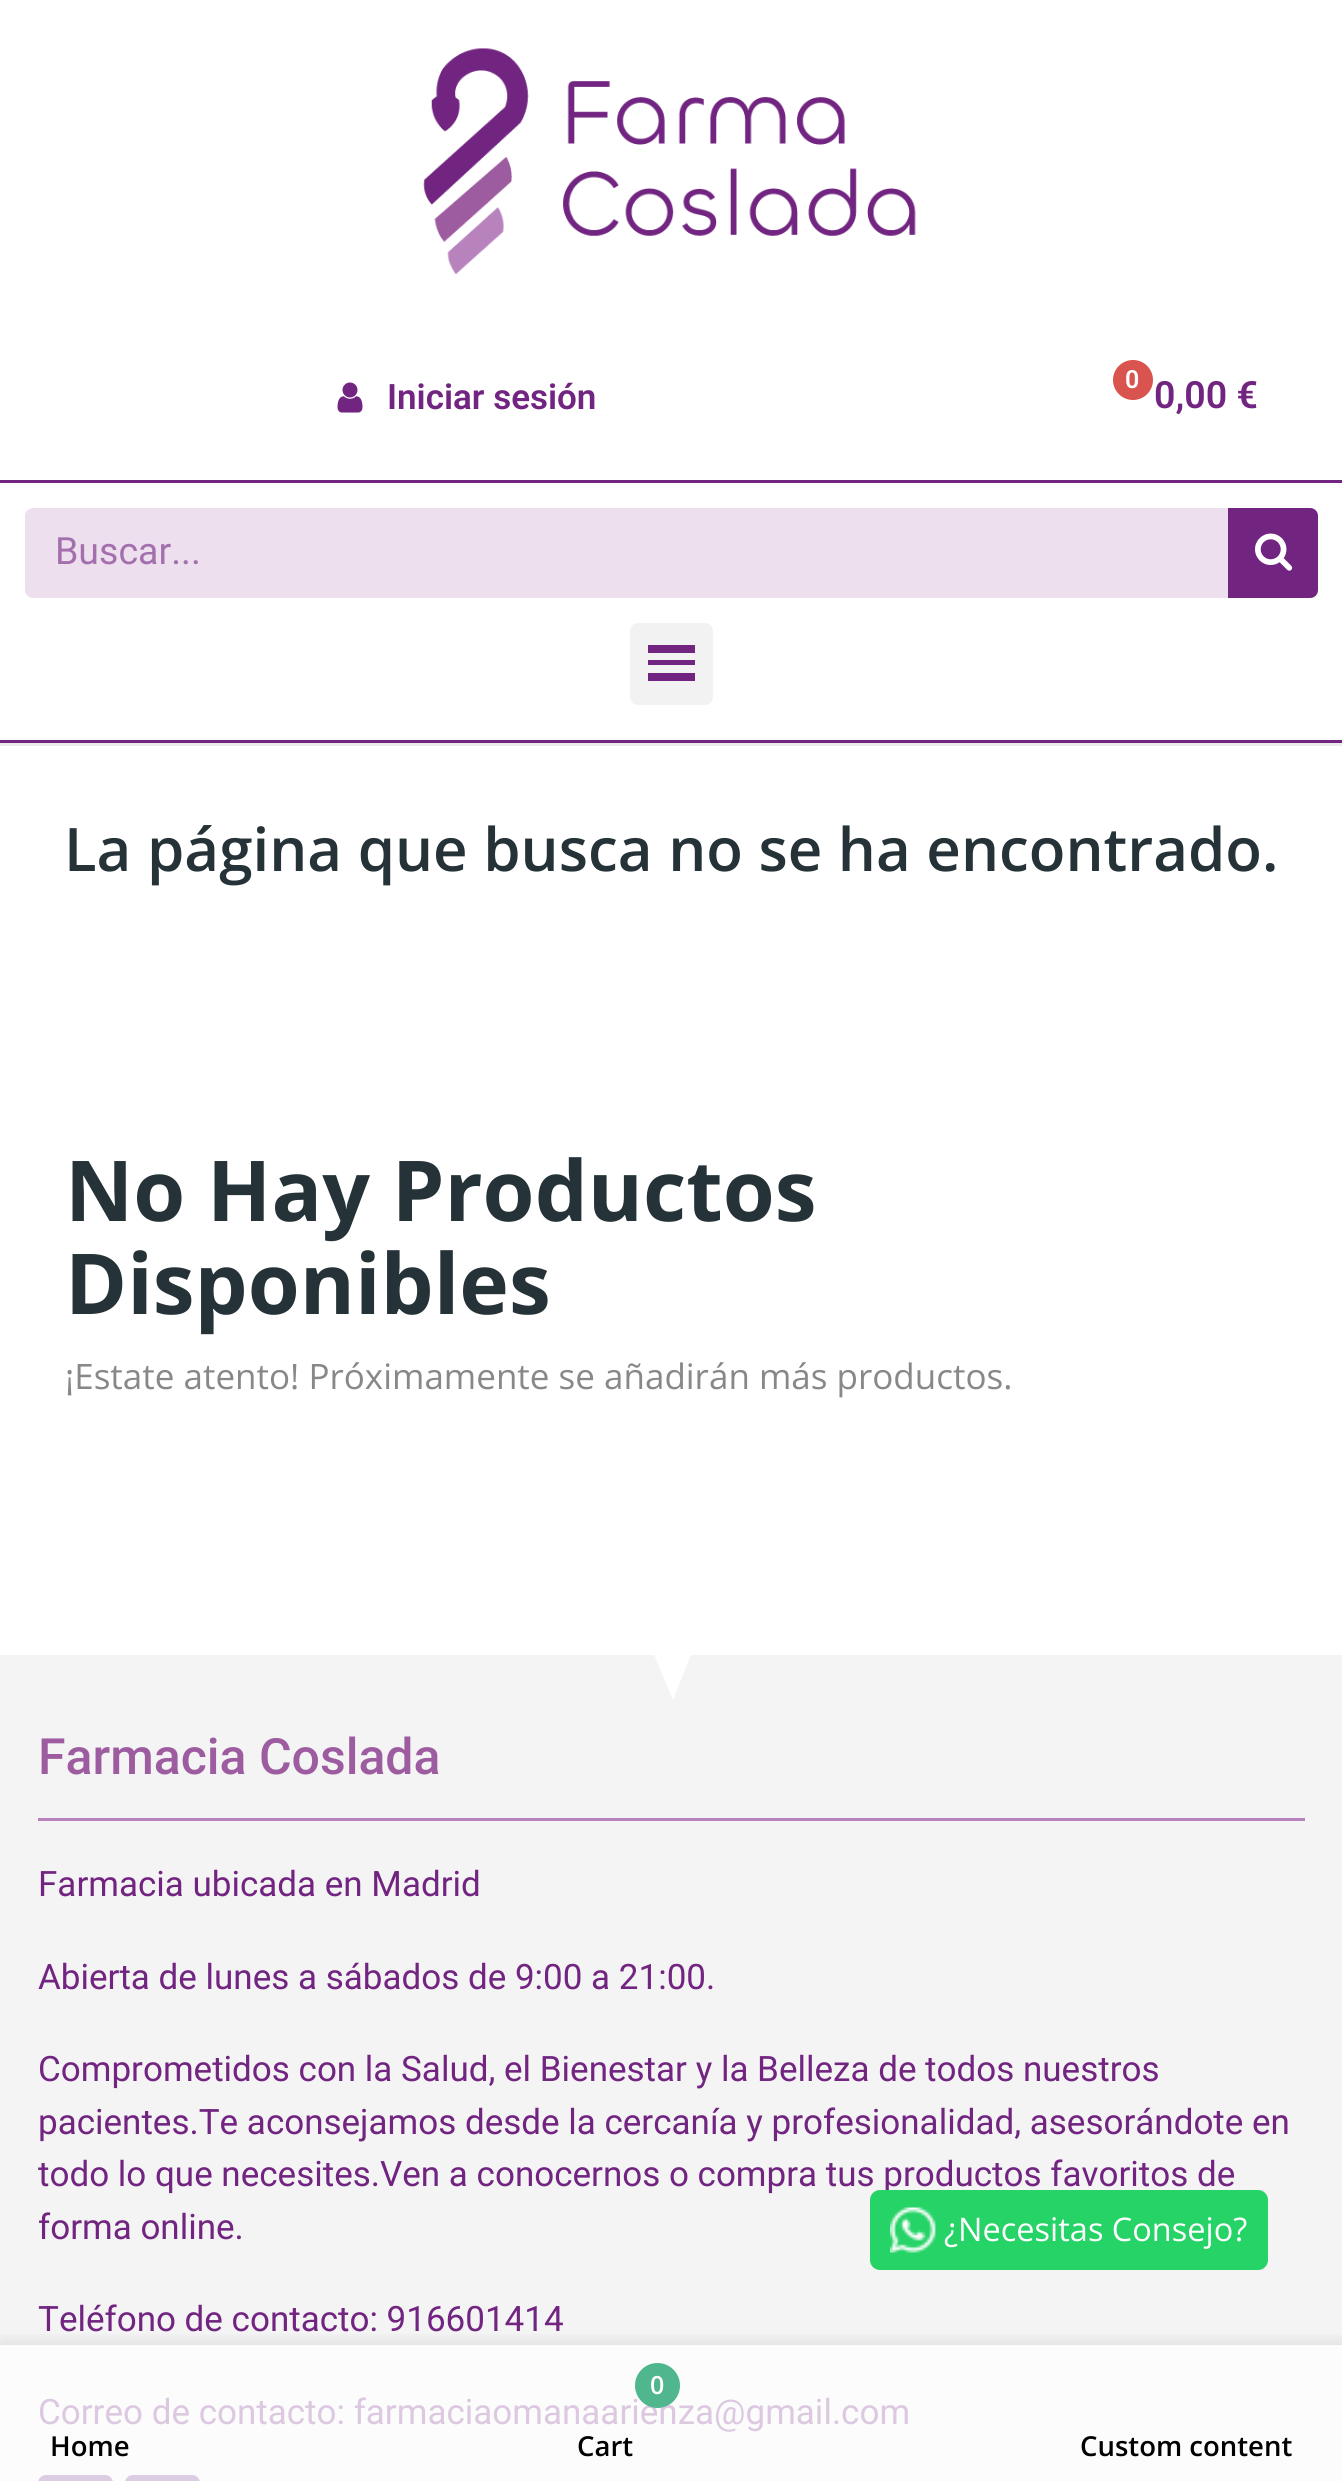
#include <cairo.h>
#include <math.h>
#include <stddef.h>

static cairo_t *ctx;

static void use_color(int r, int g, int b) {
    cairo_set_source_rgb(ctx, r / 255.0, g / 255.0, b / 255.0);
}

static void round_rect(double x, double y, double w, double h, double r) {
    cairo_new_sub_path(ctx);
    cairo_arc(ctx, x + w - r, y + h - r, r, 0, M_PI / 2);
    cairo_arc(ctx, x + r, y + h - r, r, M_PI / 2, M_PI);
    cairo_arc(ctx, x + r, y + r, r, M_PI, 1.5 * M_PI);
    cairo_arc(ctx, x + w - r, y + r, r, 1.5 * M_PI, 2 * M_PI);
    cairo_close_path(ctx);
}

static void shadow(double x, double y, double w, double h, double r, double blur, double alpha) {
    cairo_push_group_with_content(ctx, CAIRO_CONTENT_ALPHA);
    cairo_set_operator(ctx, CAIRO_OPERATOR_SOURCE);
    for (int i = 15; i >= -15 && fmin(w, h) + blur * i / 3 > 0; i -= 2) {
        double e = blur * i / 6;
        cairo_set_source_rgba(ctx, 0, 0, 0, alpha * erfc((i - 1) / 8.5) / 2);
        round_rect(x - e, y - e, w + 2 * e, h + 2 * e, fmax(0, fmin(r + e + blur * .6, fmin(w, h) / 2 + e)));
        cairo_fill(ctx);
    }
    cairo_pattern_t *soft = cairo_pop_group(ctx);
    cairo_mask(ctx, soft);
    cairo_pattern_destroy(soft);
}

static void picture(const char *path, double x, double y, double w, double h) {
    cairo_surface_t *image = cairo_image_surface_create_from_png(path);
    cairo_save(ctx);
    cairo_set_source_surface(ctx, image, x, y);
    cairo_rectangle(ctx, x, y, w, h);
    cairo_fill(ctx);
    cairo_restore(ctx);
    cairo_surface_destroy(image);
}

int main(void) {
    cairo_surface_t *surface = cairo_image_surface_create(CAIRO_FORMAT_RGB24, 1342, 2481);
    ctx = cairo_create(surface);
    cairo_font_options_t *options = cairo_font_options_create();
    cairo_font_options_set_hint_metrics(options, CAIRO_HINT_METRICS_OFF);
    cairo_font_options_set_hint_style(options, CAIRO_HINT_STYLE_NONE);
    cairo_set_font_options(ctx, options);
    cairo_set_miter_limit(ctx, 4);
    use_color(255, 255, 255);
    cairo_paint(ctx);
    use_color(235, 235, 235);
    cairo_rectangle(ctx, 0, 743, 1342, 3);
    cairo_fill(ctx);
    picture("img1.png", 423, 48, 493, 227);
    picture("img2.png", 337, 382, 26, 31);
    cairo_select_font_face(ctx, "Roboto SemiBold", CAIRO_FONT_SLANT_NORMAL, CAIRO_FONT_WEIGHT_NORMAL);
    cairo_set_font_size(ctx, 35);
    use_color(114, 36, 129);
    cairo_move_to(ctx, 387, 409);
    cairo_show_text(ctx, "Iniciar sesión");
    use_color(217, 83, 79);
    cairo_new_path(ctx);
    cairo_arc(ctx, 1133, 380, 20, 0, 2 * M_PI);
    cairo_fill(ctx);
    cairo_set_font_size(ctx, 25);
    use_color(255, 255, 255);
    cairo_move_to(ctx, 1125, 388);
    cairo_show_text(ctx, "0");
    cairo_set_font_size(ctx, 37.5);
    use_color(114, 36, 129);
    cairo_move_to(ctx, 1154, 408);
    cairo_show_text(ctx, "0,00 €");
    cairo_rectangle(ctx, 0, 480, 1342, 3);
    cairo_fill(ctx);
    cairo_rectangle(ctx, 0, 740, 1342, 3);
    cairo_fill(ctx);
    use_color(237, 223, 238);
    round_rect(25, 508, 1293, 90, 8);
    cairo_fill(ctx);
    cairo_select_font_face(ctx, "Roboto", CAIRO_FONT_SLANT_NORMAL, CAIRO_FONT_WEIGHT_NORMAL);
    use_color(163, 111, 173);
    cairo_move_to(ctx, 55, 564);
    cairo_show_text(ctx, "Buscar...");
    use_color(114, 36, 129);
    cairo_new_path(ctx);
    cairo_move_to(ctx, 1228, 508);
    cairo_line_to(ctx, 1310, 508);
    cairo_curve_to(ctx, 1314.5, 508, 1318, 511.5, 1318, 516);
    cairo_line_to(ctx, 1318, 590);
    cairo_curve_to(ctx, 1318, 594.5, 1314.5, 598, 1310, 598);
    cairo_line_to(ctx, 1228, 598);
    cairo_close_path(ctx);
    cairo_fill(ctx);
    picture("img3.png", 1255, 533, 38, 38);
    use_color(242, 242, 242);
    round_rect(630, 623, 83, 82, 8);
    cairo_fill(ctx);
    use_color(114, 36, 129);
    cairo_rectangle(ctx, 648, 660, 47, 5);
    cairo_fill(ctx);
    cairo_rectangle(ctx, 648, 645, 47, 8);
    cairo_fill(ctx);
    cairo_rectangle(ctx, 648, 673, 47, 8);
    cairo_fill(ctx);
    cairo_select_font_face(ctx, "Open Sans SemiBold", CAIRO_FONT_SLANT_NORMAL, CAIRO_FONT_WEIGHT_NORMAL);
    cairo_set_font_size(ctx, 60);
    use_color(37, 50, 55);
    cairo_move_to(ctx, 64, 871);
    cairo_show_text(ctx, "La página que busca no se ha encontrado.");
    cairo_select_font_face(ctx, "Open Sans", CAIRO_FONT_SLANT_NORMAL, CAIRO_FONT_WEIGHT_BOLD);
    cairo_set_font_size(ctx, 84);
    cairo_move_to(ctx, 65, 1221);
    cairo_show_text(ctx, "No Hay Productos");
    cairo_move_to(ctx, 65, 1314);
    cairo_show_text(ctx, "Disponibles");
    cairo_select_font_face(ctx, "Open Sans", CAIRO_FONT_SLANT_NORMAL, CAIRO_FONT_WEIGHT_NORMAL);
    cairo_set_font_size(ctx, 35);
    use_color(136, 136, 136);
    cairo_move_to(ctx, 65, 1389);
    cairo_show_text(ctx, "¡Estate atento! Próximamente se añadirán más productos.");
    use_color(244, 244, 244);
    cairo_rectangle(ctx, 0, 1655, 1342, 690);
    cairo_fill(ctx);
    use_color(252, 252, 252);
    cairo_rectangle(ctx, 0, 2345, 1342, 136);
    cairo_fill(ctx);
    cairo_save(ctx);
    cairo_rectangle(ctx, 0, 1653, 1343, 47);
    cairo_clip(ctx);
    use_color(255, 255, 255);
    cairo_new_path(ctx);
    cairo_move_to(ctx, 673, 1700);
    cairo_line_to(ctx, 653, 1652);
    cairo_line_to(ctx, 692, 1652);
    cairo_close_path(ctx);
    cairo_fill(ctx);
    cairo_restore(ctx);
    cairo_select_font_face(ctx, "Roboto Medium", CAIRO_FONT_SLANT_NORMAL, CAIRO_FONT_WEIGHT_NORMAL);
    cairo_set_font_size(ctx, 50);
    use_color(157, 92, 160);
    cairo_move_to(ctx, 38, 1774);
    cairo_show_text(ctx, "Farmacia Coslada");
    use_color(184, 131, 188);
    cairo_rectangle(ctx, 38, 1818, 1267, 3);
    cairo_fill(ctx);
    cairo_select_font_face(ctx, "Roboto", CAIRO_FONT_SLANT_NORMAL, CAIRO_FONT_WEIGHT_NORMAL);
    cairo_set_font_size(ctx, 35);
    use_color(114, 36, 129);
    cairo_move_to(ctx, 38, 1896);
    cairo_show_text(ctx, "Farmacia ubicada en Madrid");
    cairo_move_to(ctx, 38, 1989);
    cairo_show_text(ctx, "Abierta de lunes a sábados de 9:00 a 21:00.");
    cairo_move_to(ctx, 38, 2081);
    cairo_show_text(ctx, "Comprometidos con la Salud, el Bienestar y la Belleza de todos nuestros");
    cairo_move_to(ctx, 38, 2134);
    cairo_show_text(ctx, "pacientes.Te aconsejamos desde la cercanía y profesionalidad, asesorándote en");
    cairo_move_to(ctx, 38, 2186);
    cairo_show_text(ctx, "todo lo que necesites.Ven a conocernos o compra tus productos favoritos de");
    cairo_move_to(ctx, 38, 2239);
    cairo_show_text(ctx, "forma online.");
    cairo_move_to(ctx, 38, 2331);
    cairo_show_text(ctx, "Teléfono de contacto: 916601414");
    use_color(220, 200, 224);
    cairo_move_to(ctx, 38, 2424);
    cairo_show_text(ctx, "Correo de contacto: farmaciaomanaarienza@gmail.com");
    use_color(220, 204, 228);
    round_rect(38, 2475, 75, 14, 8);
    cairo_fill(ctx);
    round_rect(125, 2475, 75, 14, 8);
    cairo_fill(ctx);
    use_color(37, 211, 102);
    round_rect(870, 2190, 398, 80, 10);
    cairo_fill(ctx);
    picture("img4.png", 890, 2207, 46, 46);
    cairo_select_font_face(ctx, "Open Sans", CAIRO_FONT_SLANT_NORMAL, CAIRO_FONT_WEIGHT_NORMAL);
    cairo_set_font_size(ctx, 32.5);
    use_color(255, 255, 255);
    cairo_move_to(ctx, 944, 2241);
    cairo_show_text(ctx, "¿Necesitas Consejo?");
    cairo_save(ctx);
    cairo_rectangle(ctx, 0, 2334, 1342, 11);
    cairo_clip(ctx);
    use_color(0, 0, 0);
    shadow(0, 2345, 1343, 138, 0, 11, 0.12);
    cairo_restore(ctx);
    cairo_select_font_face(ctx, "Open Sans SemiBold", CAIRO_FONT_SLANT_NORMAL, CAIRO_FONT_WEIGHT_NORMAL);
    cairo_set_font_size(ctx, 27.5);
    use_color(0, 0, 0);
    cairo_move_to(ctx, 50, 2456);
    cairo_show_text(ctx, "Home");
    use_color(79, 182, 141);
    cairo_new_path(ctx);
    cairo_arc(ctx, 657.5, 2385.5, 22.5, 0, 2 * M_PI);
    cairo_fill(ctx);
    cairo_set_font_size(ctx, 25);
    use_color(255, 255, 255);
    cairo_move_to(ctx, 650, 2394);
    cairo_show_text(ctx, "0");
    cairo_set_font_size(ctx, 27.5);
    use_color(0, 0, 0);
    cairo_move_to(ctx, 577, 2456);
    cairo_show_text(ctx, "Cart");
    cairo_move_to(ctx, 1080, 2456);
    cairo_show_text(ctx, "Custom content");
    cairo_surface_write_to_png(surface, "result.png");
    cairo_font_options_destroy(options);
    cairo_destroy(ctx);
    cairo_surface_destroy(surface);
    return 0;
}
